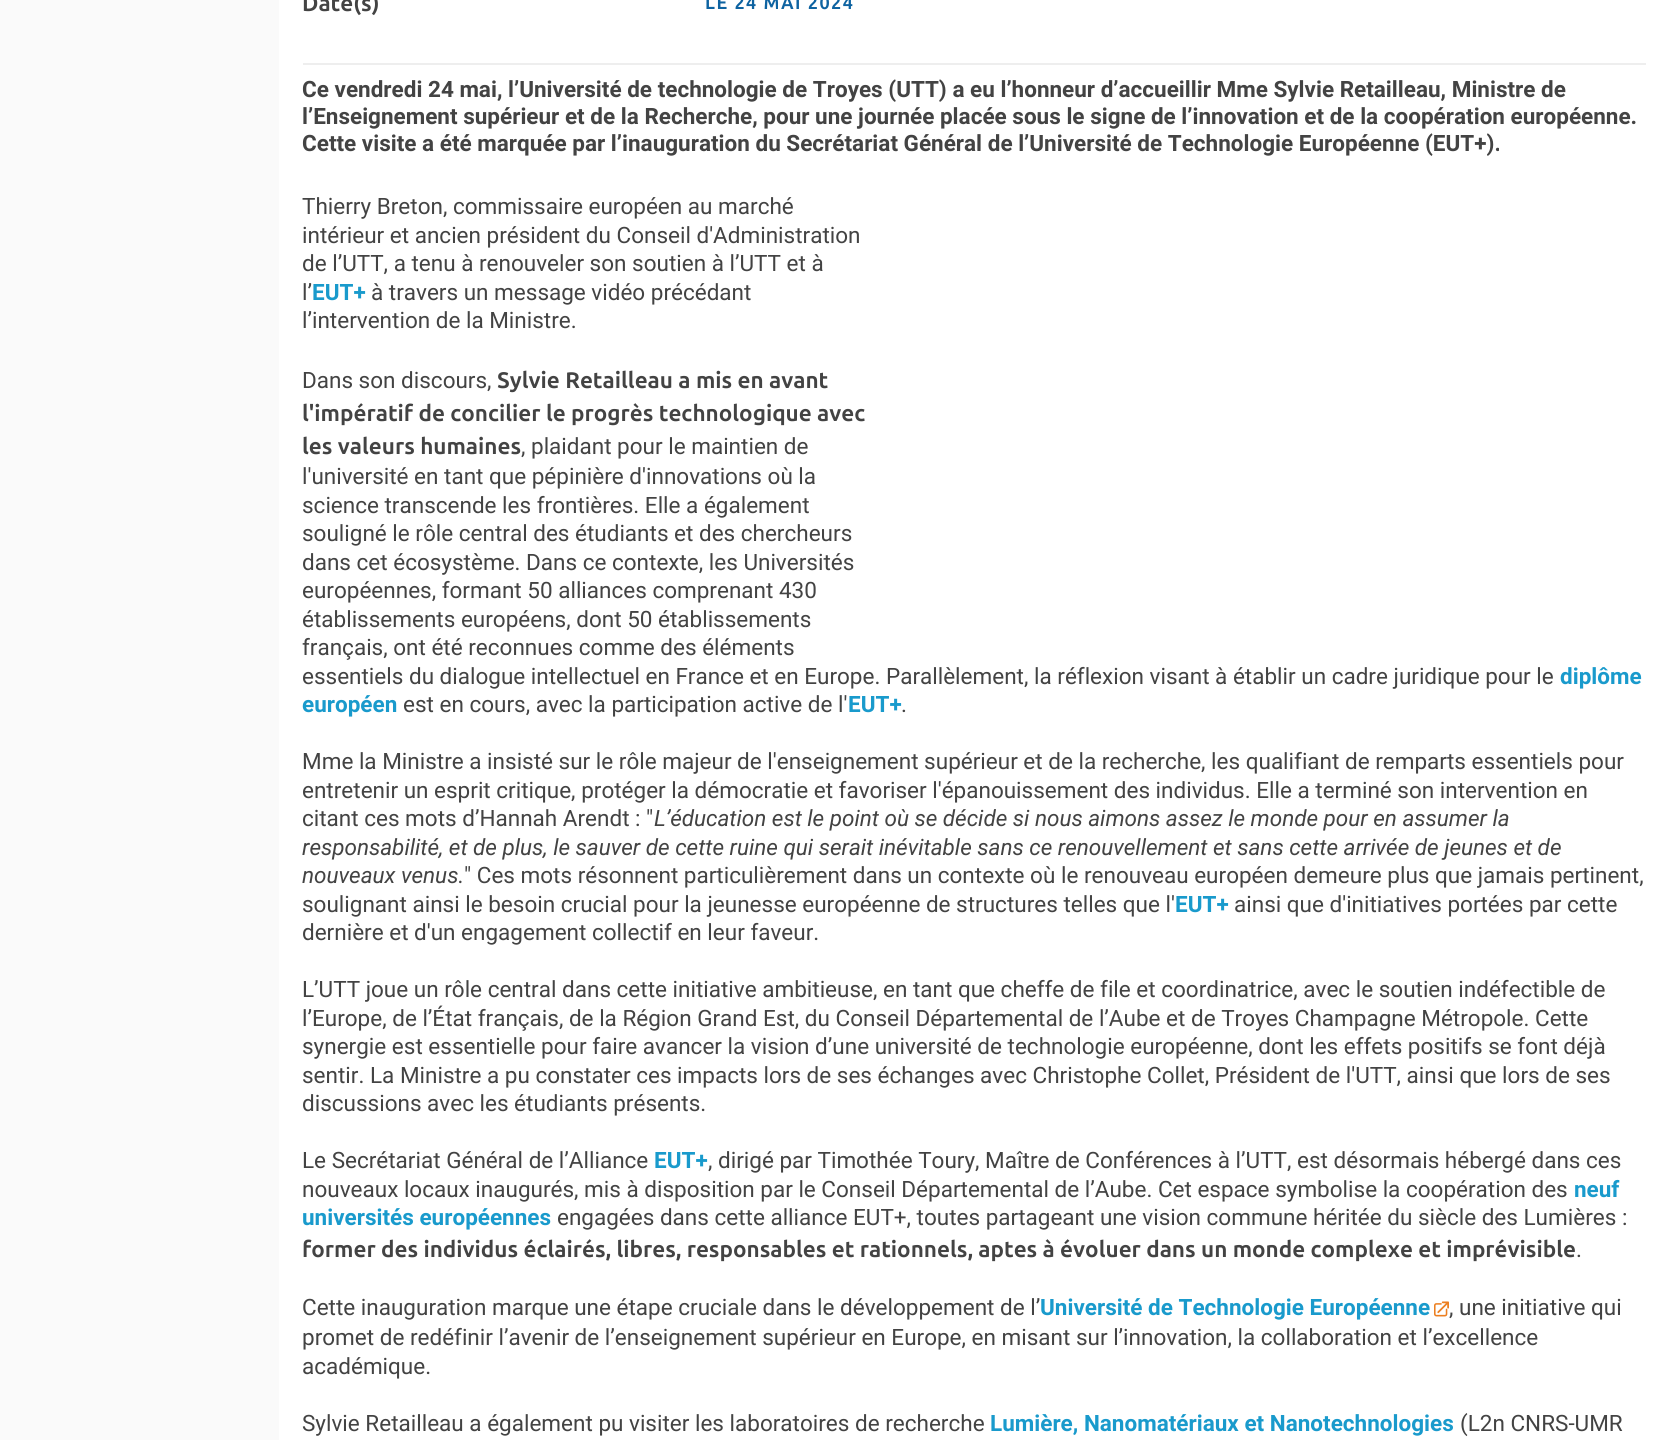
#include <cairo.h>
#include <math.h>
#include <stddef.h>

static cairo_t *ctx;

static void use_color(int r, int g, int b) {
    cairo_set_source_rgb(ctx, r / 255.0, g / 255.0, b / 255.0);
}

static void spaced_text(double x, double y, const char *s, double letter, double word) {
    cairo_move_to(ctx, x, y);
    while (*s) {
        char ch[5] = {0};
        int n = 0;
        do ch[n++] = *s++; while ((*s & 0xC0) == 0x80);
        cairo_show_text(ctx, ch);
        cairo_rel_move_to(ctx, letter + word * (*ch == ' '), 0);
    }
}

static void picture(const char *path, double x, double y, double w, double h) {
    cairo_surface_t *image = cairo_image_surface_create_from_png(path);
    cairo_save(ctx);
    cairo_set_source_surface(ctx, image, x, y);
    cairo_rectangle(ctx, x, y, w, h);
    cairo_fill(ctx);
    cairo_restore(ctx);
    cairo_surface_destroy(image);
}

int main(void) {
    cairo_surface_t *surface = cairo_image_surface_create(CAIRO_FORMAT_RGB24, 1669, 1440);
    ctx = cairo_create(surface);
    cairo_font_options_t *options = cairo_font_options_create();
    cairo_font_options_set_hint_metrics(options, CAIRO_HINT_METRICS_OFF);
    cairo_font_options_set_hint_style(options, CAIRO_HINT_STYLE_NONE);
    cairo_set_font_options(ctx, options);
    cairo_set_miter_limit(ctx, 4);
    use_color(250, 250, 250);
    cairo_paint(ctx);
    use_color(255, 255, 255);
    cairo_rectangle(ctx, 279, 0, 1390, 1440);
    cairo_fill(ctx);
    use_color(238, 238, 238);
    cairo_rectangle(ctx, 303, 63, 1343, 2);
    cairo_fill(ctx);
    cairo_select_font_face(ctx, "Ubuntu", CAIRO_FONT_SLANT_NORMAL, CAIRO_FONT_WEIGHT_BOLD);
    cairo_set_font_size(ctx, 22.5);
    use_color(67, 67, 67);
    cairo_move_to(ctx, 302, 11);
    cairo_show_text(ctx, "Date(s)");
    cairo_set_font_size(ctx, 18);
    use_color(14, 99, 161);
    spaced_text(705, 9, "LE 24 MAI 2024", 1.5, 0);
    cairo_select_font_face(ctx, "Roboto", CAIRO_FONT_SLANT_NORMAL, CAIRO_FONT_WEIGHT_BOLD);
    cairo_set_font_size(ctx, 22.5);
    use_color(67, 67, 67);
    cairo_move_to(ctx, 302, 97);
    cairo_show_text(ctx, "Ce vendredi 24 mai, l’Université de technologie de Troyes (UTT) a eu l’honneur d’accueillir Mme Sylvie Retailleau, Ministre de");
    cairo_move_to(ctx, 302, 124);
    cairo_show_text(ctx, "l’Enseignement supérieur et de la Recherche, pour une journée placée sous le signe de l’innovation et de la coopération européenne.");
    cairo_move_to(ctx, 302, 151);
    cairo_show_text(ctx, "Cette visite a été marquée par l’inauguration du Secrétariat Général de l’Université de Technologie Européenne (EUT+).");
    cairo_select_font_face(ctx, "Roboto", CAIRO_FONT_SLANT_NORMAL, CAIRO_FONT_WEIGHT_NORMAL);
    cairo_move_to(ctx, 302, 214);
    cairo_show_text(ctx, "Thierry Breton, commissaire européen au marché");
    cairo_move_to(ctx, 302, 243);
    cairo_show_text(ctx, "intérieur et ancien président du Conseil d'Administration");
    cairo_move_to(ctx, 302, 271);
    cairo_show_text(ctx, "de l’UTT, a tenu à renouveler son soutien à l’UTT et à");
    cairo_move_to(ctx, 302, 300);
    cairo_show_text(ctx, "l’");
    cairo_select_font_face(ctx, "Roboto", CAIRO_FONT_SLANT_NORMAL, CAIRO_FONT_WEIGHT_BOLD);
    use_color(25, 154, 204);
    cairo_move_to(ctx, 312, 300);
    cairo_show_text(ctx, "EUT+");
    cairo_select_font_face(ctx, "Roboto", CAIRO_FONT_SLANT_NORMAL, CAIRO_FONT_WEIGHT_NORMAL);
    use_color(67, 67, 67);
    cairo_move_to(ctx, 371, 300);
    cairo_show_text(ctx, "à travers un message vidéo précédant");
    cairo_move_to(ctx, 302, 328);
    cairo_show_text(ctx, "l’intervention de la Ministre.");
    cairo_move_to(ctx, 302, 388);
    cairo_show_text(ctx, "Dans son discours,");
    cairo_select_font_face(ctx, "Ubuntu", CAIRO_FONT_SLANT_NORMAL, CAIRO_FONT_WEIGHT_BOLD);
    cairo_move_to(ctx, 497, 388);
    cairo_show_text(ctx, "Sylvie Retailleau a mis en avant");
    cairo_move_to(ctx, 302, 421);
    cairo_show_text(ctx, "l'impératif de concilier le progrès technologique avec");
    cairo_move_to(ctx, 302, 454);
    cairo_show_text(ctx, "les valeurs humaines");
    cairo_select_font_face(ctx, "Roboto", CAIRO_FONT_SLANT_NORMAL, CAIRO_FONT_WEIGHT_NORMAL);
    cairo_move_to(ctx, 521, 454);
    cairo_show_text(ctx, ", plaidant pour le maintien de");
    cairo_move_to(ctx, 302, 484);
    cairo_show_text(ctx, "l'université en tant que pépinière d'innovations où la");
    cairo_move_to(ctx, 302, 513);
    cairo_show_text(ctx, "science transcende les frontières. Elle a également");
    cairo_move_to(ctx, 302, 541);
    cairo_show_text(ctx, "souligné le rôle central des étudiants et des chercheurs");
    cairo_move_to(ctx, 302, 570);
    cairo_show_text(ctx, "dans cet écosystème. Dans ce contexte, les Universités");
    cairo_move_to(ctx, 302, 598);
    cairo_show_text(ctx, "européennes, formant 50 alliances comprenant 430");
    cairo_move_to(ctx, 302, 627);
    cairo_show_text(ctx, "établissements européens, dont 50 établissements");
    cairo_move_to(ctx, 302, 655);
    cairo_show_text(ctx, "français, ont été reconnues comme des éléments");
    cairo_move_to(ctx, 302, 684);
    cairo_show_text(ctx, "essentiels du dialogue intellectuel en France et en Europe. Parallèlement, la réflexion visant à établir un cadre juridique pour le");
    cairo_select_font_face(ctx, "Roboto", CAIRO_FONT_SLANT_NORMAL, CAIRO_FONT_WEIGHT_BOLD);
    use_color(25, 154, 204);
    cairo_move_to(ctx, 1560, 684);
    cairo_show_text(ctx, "diplôme");
    cairo_move_to(ctx, 302, 712);
    cairo_show_text(ctx, "européen");
    cairo_select_font_face(ctx, "Roboto", CAIRO_FONT_SLANT_NORMAL, CAIRO_FONT_WEIGHT_NORMAL);
    use_color(67, 67, 67);
    cairo_move_to(ctx, 403, 712);
    cairo_show_text(ctx, "est en cours, avec la participation active de l'");
    cairo_select_font_face(ctx, "Roboto", CAIRO_FONT_SLANT_NORMAL, CAIRO_FONT_WEIGHT_BOLD);
    use_color(25, 154, 204);
    cairo_move_to(ctx, 848, 712);
    cairo_show_text(ctx, "EUT+");
    cairo_select_font_face(ctx, "Roboto", CAIRO_FONT_SLANT_NORMAL, CAIRO_FONT_WEIGHT_NORMAL);
    use_color(67, 67, 67);
    cairo_move_to(ctx, 901, 712);
    cairo_show_text(ctx, ".");
    cairo_move_to(ctx, 302, 769);
    cairo_show_text(ctx, "Mme la Ministre a insisté sur le rôle majeur de l'enseignement supérieur et de la recherche, les qualifiant de remparts essentiels pour");
    cairo_move_to(ctx, 302, 798);
    cairo_show_text(ctx, "entretenir un esprit critique, protéger la démocratie et favoriser l'épanouissement des individus. Elle a terminé son intervention en");
    cairo_move_to(ctx, 302, 826);
    cairo_show_text(ctx, "citant ces mots d’Hannah Arendt : \"");
    cairo_select_font_face(ctx, "Roboto", CAIRO_FONT_SLANT_ITALIC, CAIRO_FONT_WEIGHT_NORMAL);
    cairo_move_to(ctx, 654, 826);
    cairo_show_text(ctx, "L’éducation est le point où se décide si nous aimons assez le monde pour en assumer la");
    cairo_move_to(ctx, 302, 855);
    cairo_show_text(ctx, "responsabilité, et de plus, le sauver de cette ruine qui serait inévitable sans ce renouvellement et sans cette arrivée de jeunes et de");
    cairo_move_to(ctx, 302, 883);
    cairo_show_text(ctx, "nouveaux venus.");
    cairo_select_font_face(ctx, "Roboto", CAIRO_FONT_SLANT_NORMAL, CAIRO_FONT_WEIGHT_NORMAL);
    cairo_move_to(ctx, 464, 883);
    cairo_show_text(ctx, "\" Ces mots résonnent particulièrement dans un contexte où le renouveau européen demeure plus que jamais pertinent,");
    cairo_move_to(ctx, 302, 912);
    cairo_show_text(ctx, "soulignant ainsi le besoin crucial pour la jeunesse européenne de structures telles que l'");
    cairo_select_font_face(ctx, "Roboto", CAIRO_FONT_SLANT_NORMAL, CAIRO_FONT_WEIGHT_BOLD);
    use_color(25, 154, 204);
    cairo_move_to(ctx, 1175, 912);
    cairo_show_text(ctx, "EUT+");
    cairo_select_font_face(ctx, "Roboto", CAIRO_FONT_SLANT_NORMAL, CAIRO_FONT_WEIGHT_NORMAL);
    use_color(67, 67, 67);
    cairo_move_to(ctx, 1234, 912);
    cairo_show_text(ctx, "ainsi que d'initiatives portées par cette");
    cairo_move_to(ctx, 302, 940);
    cairo_show_text(ctx, "dernière et d'un engagement collectif en leur faveur.");
    cairo_move_to(ctx, 302, 997);
    cairo_show_text(ctx, "L’UTT joue un rôle central dans cette initiative ambitieuse, en tant que cheffe de file et coordinatrice, avec le soutien indéfectible de");
    cairo_move_to(ctx, 302, 1026);
    cairo_show_text(ctx, "l’Europe, de l’État français, de la Région Grand Est, du Conseil Départemental de l’Aube et de Troyes Champagne Métropole. Cette");
    cairo_move_to(ctx, 302, 1054);
    cairo_show_text(ctx, "synergie est essentielle pour faire avancer la vision d’une université de technologie européenne, dont les effets positifs se font déjà");
    cairo_move_to(ctx, 302, 1083);
    cairo_show_text(ctx, "sentir. La Ministre a pu constater ces impacts lors de ses échanges avec Christophe Collet, Président de l'UTT, ainsi que lors de ses");
    cairo_move_to(ctx, 302, 1111);
    cairo_show_text(ctx, "discussions avec les étudiants présents.");
    cairo_move_to(ctx, 302, 1168);
    cairo_show_text(ctx, "Le Secrétariat Général de l’Alliance");
    cairo_select_font_face(ctx, "Roboto", CAIRO_FONT_SLANT_NORMAL, CAIRO_FONT_WEIGHT_BOLD);
    use_color(25, 154, 204);
    cairo_move_to(ctx, 654, 1168);
    cairo_show_text(ctx, "EUT+");
    cairo_select_font_face(ctx, "Roboto", CAIRO_FONT_SLANT_NORMAL, CAIRO_FONT_WEIGHT_NORMAL);
    use_color(67, 67, 67);
    cairo_move_to(ctx, 708, 1168);
    cairo_show_text(ctx, ", dirigé par Timothée Toury, Maître de Conférences à l’UTT, est désormais hébergé dans ces");
    cairo_move_to(ctx, 302, 1197);
    cairo_show_text(ctx, "nouveaux locaux inaugurés, mis à disposition par le Conseil Départemental de l’Aube. Cet espace symbolise la coopération des");
    cairo_select_font_face(ctx, "Roboto", CAIRO_FONT_SLANT_NORMAL, CAIRO_FONT_WEIGHT_BOLD);
    use_color(25, 154, 204);
    cairo_move_to(ctx, 1574, 1197);
    cairo_show_text(ctx, "neuf");
    cairo_move_to(ctx, 302, 1225);
    cairo_show_text(ctx, "universités européennes");
    cairo_select_font_face(ctx, "Roboto", CAIRO_FONT_SLANT_NORMAL, CAIRO_FONT_WEIGHT_NORMAL);
    use_color(67, 67, 67);
    cairo_move_to(ctx, 557, 1225);
    cairo_show_text(ctx, "engagées dans cette alliance EUT+, toutes partageant une vision commune héritée du siècle des Lumières :");
    cairo_select_font_face(ctx, "Ubuntu", CAIRO_FONT_SLANT_NORMAL, CAIRO_FONT_WEIGHT_BOLD);
    cairo_move_to(ctx, 302, 1257);
    cairo_show_text(ctx, "former des individus éclairés, libres, responsables et rationnels, aptes à évoluer dans un monde complexe et imprévisible");
    cairo_select_font_face(ctx, "Roboto", CAIRO_FONT_SLANT_NORMAL, CAIRO_FONT_WEIGHT_NORMAL);
    cairo_move_to(ctx, 1576, 1257);
    cairo_show_text(ctx, ".");
    cairo_move_to(ctx, 302, 1315);
    cairo_show_text(ctx, "Cette inauguration marque une étape cruciale dans le développement de l’");
    cairo_select_font_face(ctx, "Roboto", CAIRO_FONT_SLANT_NORMAL, CAIRO_FONT_WEIGHT_BOLD);
    use_color(25, 154, 204);
    cairo_move_to(ctx, 1040, 1315);
    cairo_show_text(ctx, "Université de Technologie Européenne");
    picture("img1.png", 1434, 1301, 15, 16);
    cairo_select_font_face(ctx, "Roboto", CAIRO_FONT_SLANT_NORMAL, CAIRO_FONT_WEIGHT_NORMAL);
    use_color(67, 67, 67);
    cairo_move_to(ctx, 1449, 1315);
    cairo_show_text(ctx, ", une initiative qui");
    cairo_move_to(ctx, 302, 1345);
    cairo_show_text(ctx, "promet de redéfinir l’avenir de l’enseignement supérieur en Europe, en misant sur l’innovation, la collaboration et l’excellence");
    cairo_move_to(ctx, 302, 1374);
    cairo_show_text(ctx, "académique.");
    cairo_move_to(ctx, 302, 1431);
    cairo_show_text(ctx, "Sylvie Retailleau a également pu visiter les laboratoires de recherche");
    cairo_select_font_face(ctx, "Roboto", CAIRO_FONT_SLANT_NORMAL, CAIRO_FONT_WEIGHT_BOLD);
    use_color(25, 154, 204);
    cairo_move_to(ctx, 990, 1431);
    cairo_show_text(ctx, "Lumière, Nanomatériaux et Nanotechnologies");
    cairo_select_font_face(ctx, "Roboto", CAIRO_FONT_SLANT_NORMAL, CAIRO_FONT_WEIGHT_NORMAL);
    use_color(67, 67, 67);
    cairo_move_to(ctx, 1460, 1431);
    cairo_show_text(ctx, "(L2n CNRS-UMR");
    cairo_surface_write_to_png(surface, "result.png");
    cairo_font_options_destroy(options);
    cairo_destroy(ctx);
    cairo_surface_destroy(surface);
    return 0;
}
